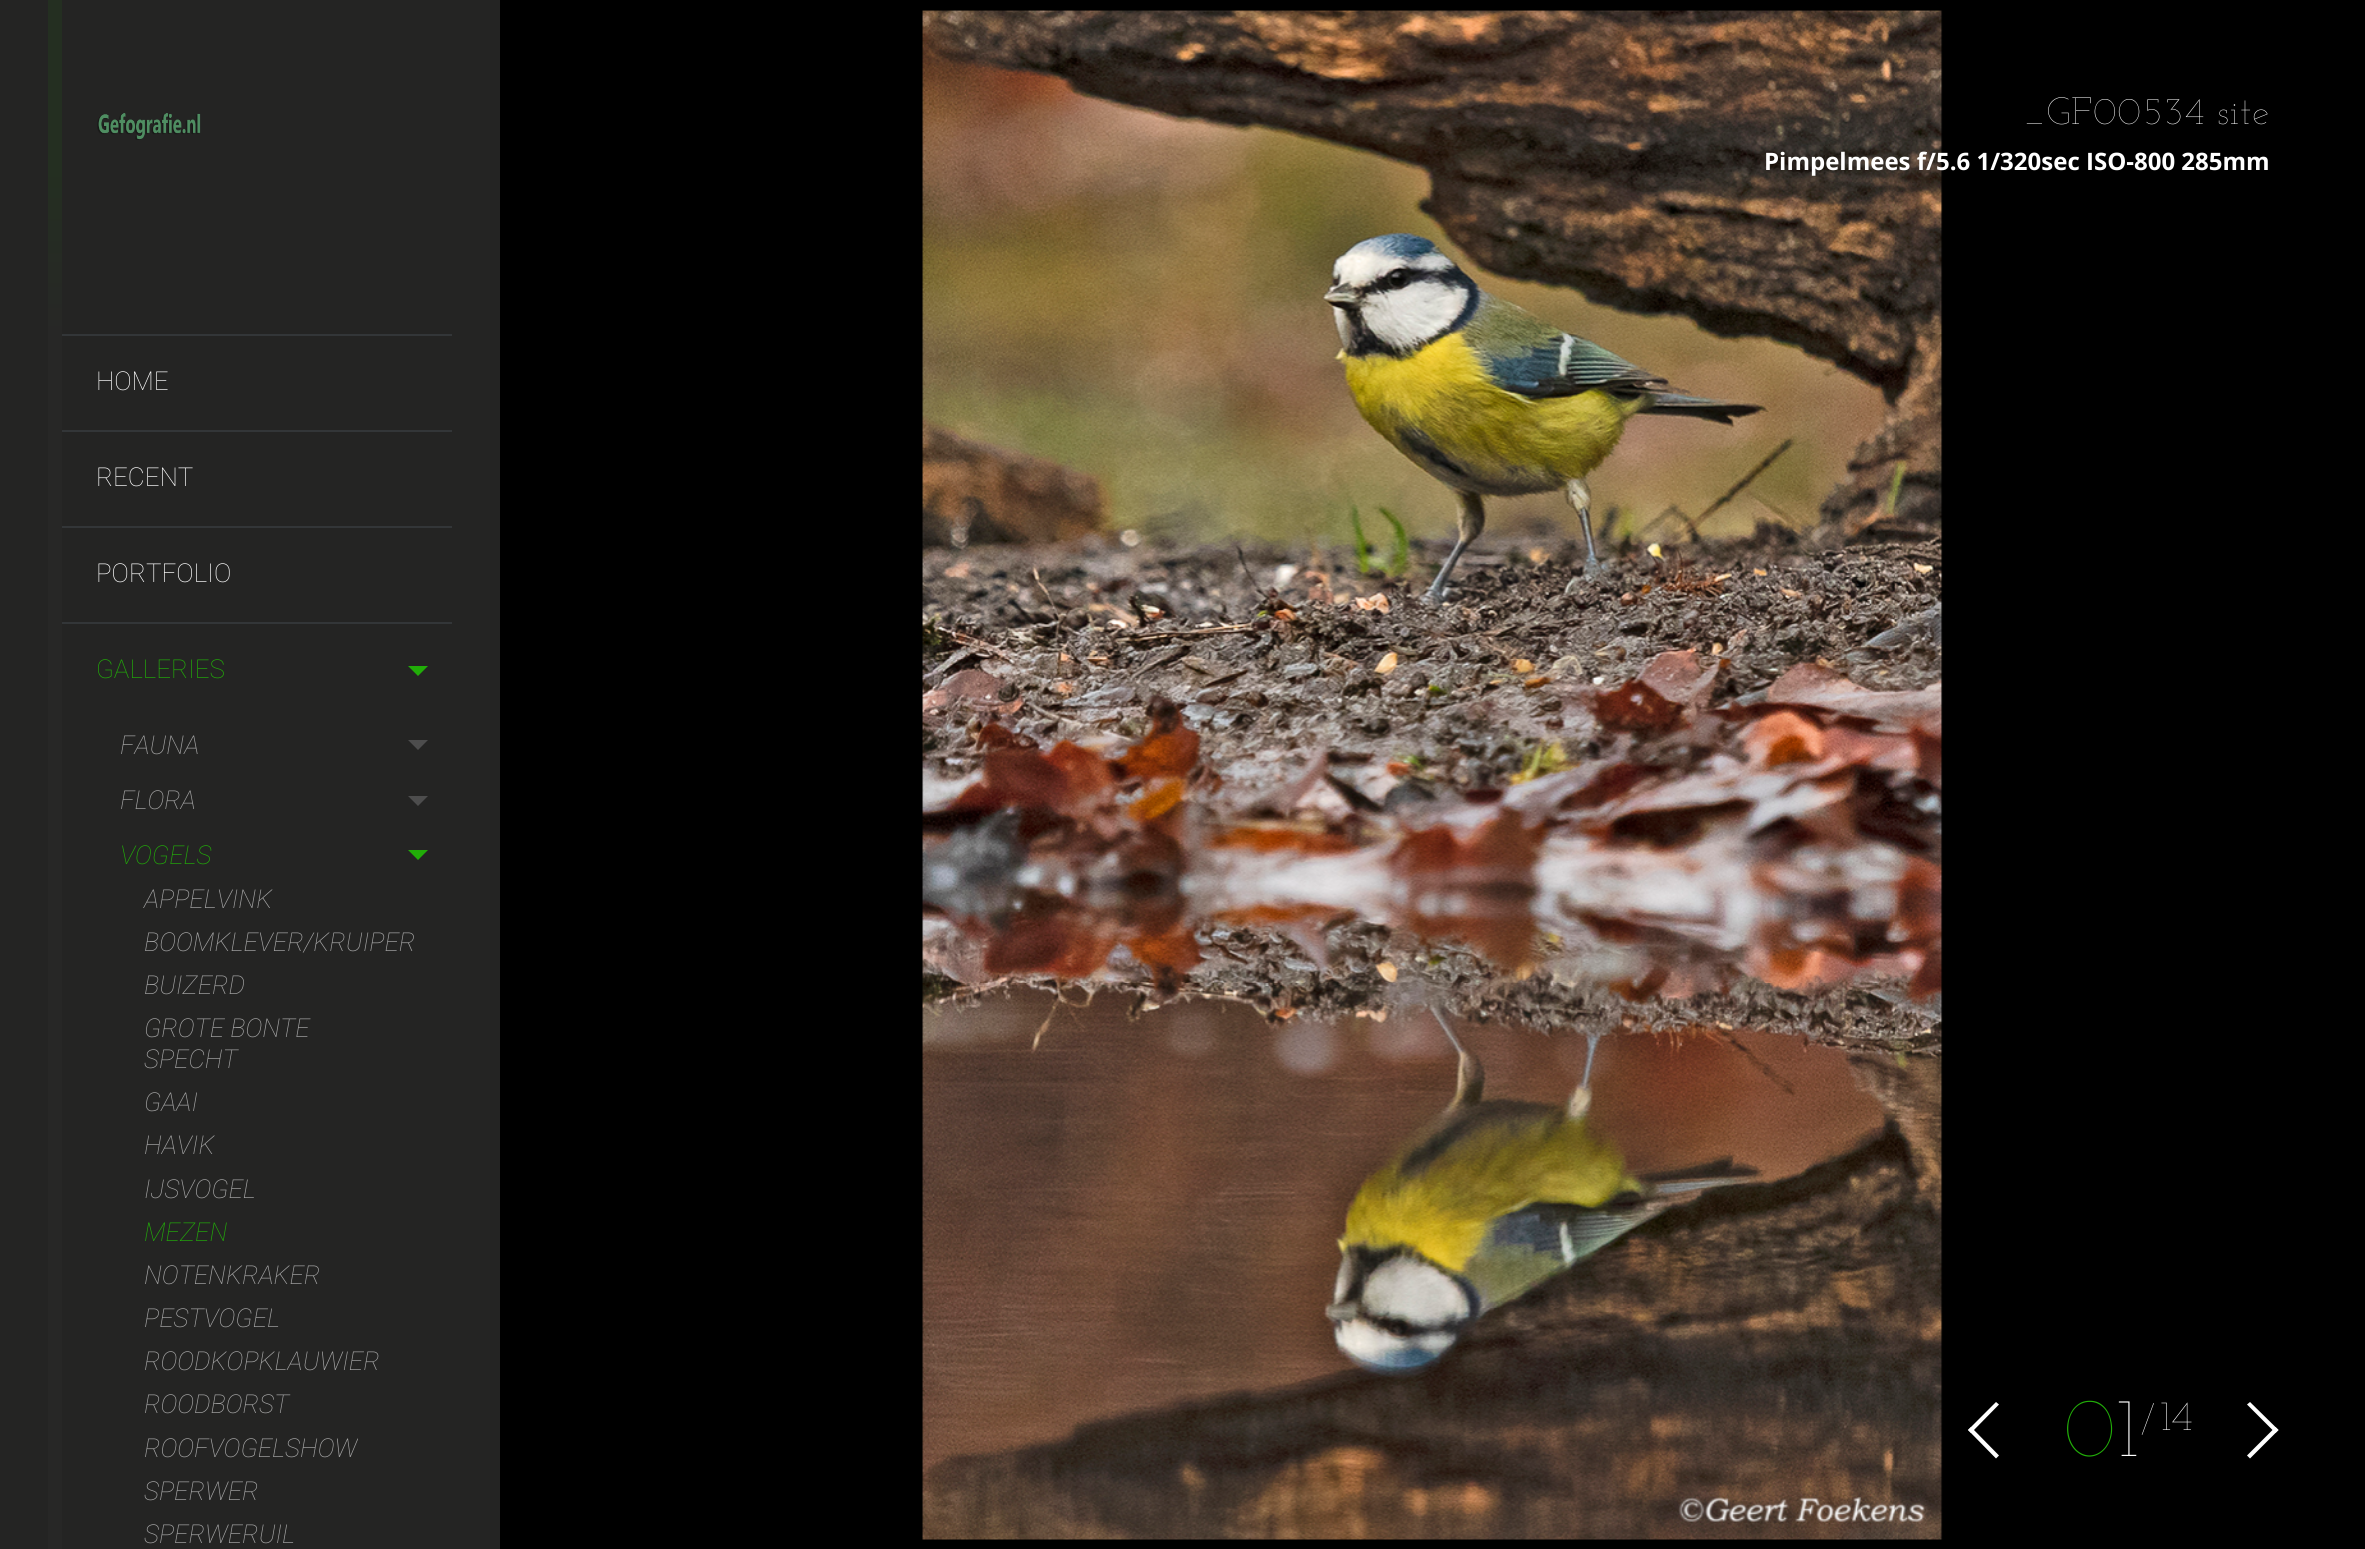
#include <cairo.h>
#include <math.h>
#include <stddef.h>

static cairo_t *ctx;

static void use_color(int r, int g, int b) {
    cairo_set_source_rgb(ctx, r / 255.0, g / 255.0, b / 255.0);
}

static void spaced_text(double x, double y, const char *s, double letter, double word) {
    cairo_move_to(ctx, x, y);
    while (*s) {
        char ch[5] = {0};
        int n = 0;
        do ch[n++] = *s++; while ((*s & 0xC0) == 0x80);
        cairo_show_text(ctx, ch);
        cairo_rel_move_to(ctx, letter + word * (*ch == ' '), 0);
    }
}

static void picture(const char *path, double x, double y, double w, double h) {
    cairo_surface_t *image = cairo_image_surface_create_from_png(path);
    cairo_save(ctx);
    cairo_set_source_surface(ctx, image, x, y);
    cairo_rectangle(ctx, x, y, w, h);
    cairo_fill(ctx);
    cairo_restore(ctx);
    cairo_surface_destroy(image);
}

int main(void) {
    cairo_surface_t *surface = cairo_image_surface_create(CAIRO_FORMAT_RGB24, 2365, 1549);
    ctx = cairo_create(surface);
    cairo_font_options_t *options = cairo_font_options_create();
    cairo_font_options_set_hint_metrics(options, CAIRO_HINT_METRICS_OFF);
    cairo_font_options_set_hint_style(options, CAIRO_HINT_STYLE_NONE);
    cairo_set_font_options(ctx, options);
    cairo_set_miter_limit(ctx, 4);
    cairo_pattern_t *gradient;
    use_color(0, 0, 0);
    cairo_paint(ctx);
    use_color(36, 36, 35);
    cairo_rectangle(ctx, 0, 0, 500, 1549);
    cairo_fill(ctx);
    use_color(39, 39, 38);
    cairo_rectangle(ctx, 48, 336, 14, 1213);
    cairo_fill(ctx);
    gradient = cairo_pattern_create_linear(49, 0, 49, 336);
    cairo_pattern_add_color_stop_rgba(gradient, 0.5, 0.141, 0.184, 0.129, 1);
    cairo_pattern_add_color_stop_rgba(gradient, 1, 0.153, 0.153, 0.149, 1);
    cairo_set_source(ctx, gradient);
    cairo_pattern_destroy(gradient);
    cairo_rectangle(ctx, 48, 0, 14, 336);
    cairo_fill(ctx);
    picture("img1.png", 97, 113, 104, 27);
    use_color(51, 54, 56);
    cairo_rectangle(ctx, 62, 334, 390, 2);
    cairo_fill(ctx);
    cairo_rectangle(ctx, 62, 430, 390, 2);
    cairo_fill(ctx);
    cairo_select_font_face(ctx, "Roboto Thin", CAIRO_FONT_SLANT_NORMAL, CAIRO_FONT_WEIGHT_NORMAL);
    cairo_set_font_size(ctx, 26);
    use_color(255, 255, 255);
    cairo_move_to(ctx, 96, 390);
    cairo_show_text(ctx, "HOME");
    use_color(51, 54, 56);
    cairo_rectangle(ctx, 62, 526, 390, 2);
    cairo_fill(ctx);
    use_color(255, 255, 255);
    cairo_move_to(ctx, 96, 486);
    cairo_show_text(ctx, "RECENT");
    use_color(51, 54, 56);
    cairo_rectangle(ctx, 62, 622, 390, 2);
    cairo_fill(ctx);
    use_color(255, 255, 255);
    cairo_move_to(ctx, 96, 582);
    cairo_show_text(ctx, "PORTFOLIO");
    use_color(33, 173, 8);
    cairo_move_to(ctx, 96, 678);
    cairo_show_text(ctx, "GALLERIES");
    cairo_new_path(ctx);
    cairo_move_to(ctx, 408, 666);
    cairo_line_to(ctx, 428, 666);
    cairo_line_to(ctx, 418, 676);
    cairo_close_path(ctx);
    cairo_fill(ctx);
    cairo_select_font_face(ctx, "Roboto Thin", CAIRO_FONT_SLANT_ITALIC, CAIRO_FONT_WEIGHT_NORMAL);
    use_color(167, 167, 167);
    cairo_move_to(ctx, 120, 754);
    cairo_show_text(ctx, "FAUNA");
    use_color(77, 77, 77);
    cairo_new_path(ctx);
    cairo_move_to(ctx, 408, 740);
    cairo_line_to(ctx, 428, 740);
    cairo_line_to(ctx, 418, 750);
    cairo_close_path(ctx);
    cairo_fill(ctx);
    use_color(167, 167, 167);
    cairo_move_to(ctx, 120, 809);
    cairo_show_text(ctx, "FLORA");
    use_color(77, 77, 77);
    cairo_new_path(ctx);
    cairo_move_to(ctx, 408, 796);
    cairo_line_to(ctx, 428, 796);
    cairo_line_to(ctx, 418, 806);
    cairo_close_path(ctx);
    cairo_fill(ctx);
    use_color(33, 173, 8);
    cairo_move_to(ctx, 120, 864);
    cairo_show_text(ctx, "VOGELS");
    cairo_new_path(ctx);
    cairo_move_to(ctx, 408, 850);
    cairo_line_to(ctx, 428, 850);
    cairo_line_to(ctx, 418, 860);
    cairo_close_path(ctx);
    cairo_fill(ctx);
    use_color(167, 167, 167);
    cairo_move_to(ctx, 144, 908);
    cairo_show_text(ctx, "APPELVINK");
    cairo_move_to(ctx, 144, 951);
    cairo_show_text(ctx, "BOOMKLEVER/KRUIPER");
    cairo_move_to(ctx, 144, 994);
    cairo_show_text(ctx, "BUIZERD");
    cairo_move_to(ctx, 144, 1037);
    cairo_show_text(ctx, "GROTE BONTE");
    cairo_move_to(ctx, 144, 1068);
    cairo_show_text(ctx, "SPECHT");
    cairo_move_to(ctx, 144, 1111);
    cairo_show_text(ctx, "GAAI");
    cairo_move_to(ctx, 144, 1154);
    cairo_show_text(ctx, "HAVIK");
    cairo_move_to(ctx, 144, 1198);
    cairo_show_text(ctx, "IJSVOGEL");
    use_color(33, 173, 8);
    cairo_move_to(ctx, 144, 1241);
    cairo_show_text(ctx, "MEZEN");
    use_color(167, 167, 167);
    cairo_move_to(ctx, 144, 1284);
    cairo_show_text(ctx, "NOTENKRAKER");
    cairo_move_to(ctx, 144, 1327);
    cairo_show_text(ctx, "PESTVOGEL");
    cairo_move_to(ctx, 144, 1370);
    cairo_show_text(ctx, "ROODKOPKLAUWIER");
    cairo_move_to(ctx, 144, 1413);
    cairo_show_text(ctx, "ROODBORST");
    cairo_move_to(ctx, 144, 1457);
    cairo_show_text(ctx, "ROOFVOGELSHOW");
    cairo_move_to(ctx, 144, 1500);
    cairo_show_text(ctx, "SPERWER");
    cairo_move_to(ctx, 144, 1543);
    cairo_show_text(ctx, "SPERWERUIL");
    picture("img2.png", 922, 10, 1021, 1530);
    cairo_select_font_face(ctx, "Josefin Slab Thin", CAIRO_FONT_SLANT_NORMAL, CAIRO_FONT_WEIGHT_NORMAL);
    cairo_set_font_size(ctx, 38);
    use_color(255, 255, 255);
    spaced_text(2023, 124, "_GF00534 site", 1, 0);
    cairo_select_font_face(ctx, "Open Sans", CAIRO_FONT_SLANT_NORMAL, CAIRO_FONT_WEIGHT_BOLD);
    cairo_set_font_size(ctx, 24);
    cairo_move_to(ctx, 1764, 170);
    cairo_show_text(ctx, "Pimpelmees f/5.6 1/320sec ISO-800 285mm");
    cairo_new_path(ctx);
    cairo_move_to(ctx, 1971, 1427);
    cairo_line_to(ctx, 1999, 1455.5);
    cairo_line_to(ctx, 1996, 1458.5);
    cairo_line_to(ctx, 1968, 1430);
    cairo_close_path(ctx);
    cairo_fill(ctx);
    cairo_new_path(ctx);
    cairo_move_to(ctx, 1996, 1402);
    cairo_line_to(ctx, 1999, 1404.5);
    cairo_line_to(ctx, 1971, 1433);
    cairo_line_to(ctx, 1968, 1430);
    cairo_close_path(ctx);
    cairo_fill(ctx);
    cairo_select_font_face(ctx, "Josefin Slab Thin", CAIRO_FONT_SLANT_NORMAL, CAIRO_FONT_WEIGHT_NORMAL);
    cairo_set_font_size(ctx, 84);
    use_color(33, 173, 8);
    cairo_move_to(ctx, 2064, 1456);
    cairo_show_text(ctx, "0");
    use_color(255, 255, 255);
    cairo_move_to(ctx, 2116, 1456);
    cairo_show_text(ctx, "1");
    cairo_set_font_size(ctx, 42);
    cairo_move_to(ctx, 2141, 1434);
    cairo_show_text(ctx, "/");
    cairo_move_to(ctx, 2160, 1430);
    cairo_show_text(ctx, "14");
    cairo_new_path(ctx);
    cairo_move_to(ctx, 2247, 1404.5);
    cairo_line_to(ctx, 2250, 1402);
    cairo_line_to(ctx, 2278.5, 1430);
    cairo_line_to(ctx, 2275.5, 1433);
    cairo_close_path(ctx);
    cairo_fill(ctx);
    cairo_new_path(ctx);
    cairo_move_to(ctx, 2247, 1455.5);
    cairo_line_to(ctx, 2275.5, 1427);
    cairo_line_to(ctx, 2278.5, 1430);
    cairo_line_to(ctx, 2250, 1458.5);
    cairo_close_path(ctx);
    cairo_fill(ctx);
    cairo_surface_write_to_png(surface, "result.png");
    cairo_font_options_destroy(options);
    cairo_destroy(ctx);
    cairo_surface_destroy(surface);
    return 0;
}
